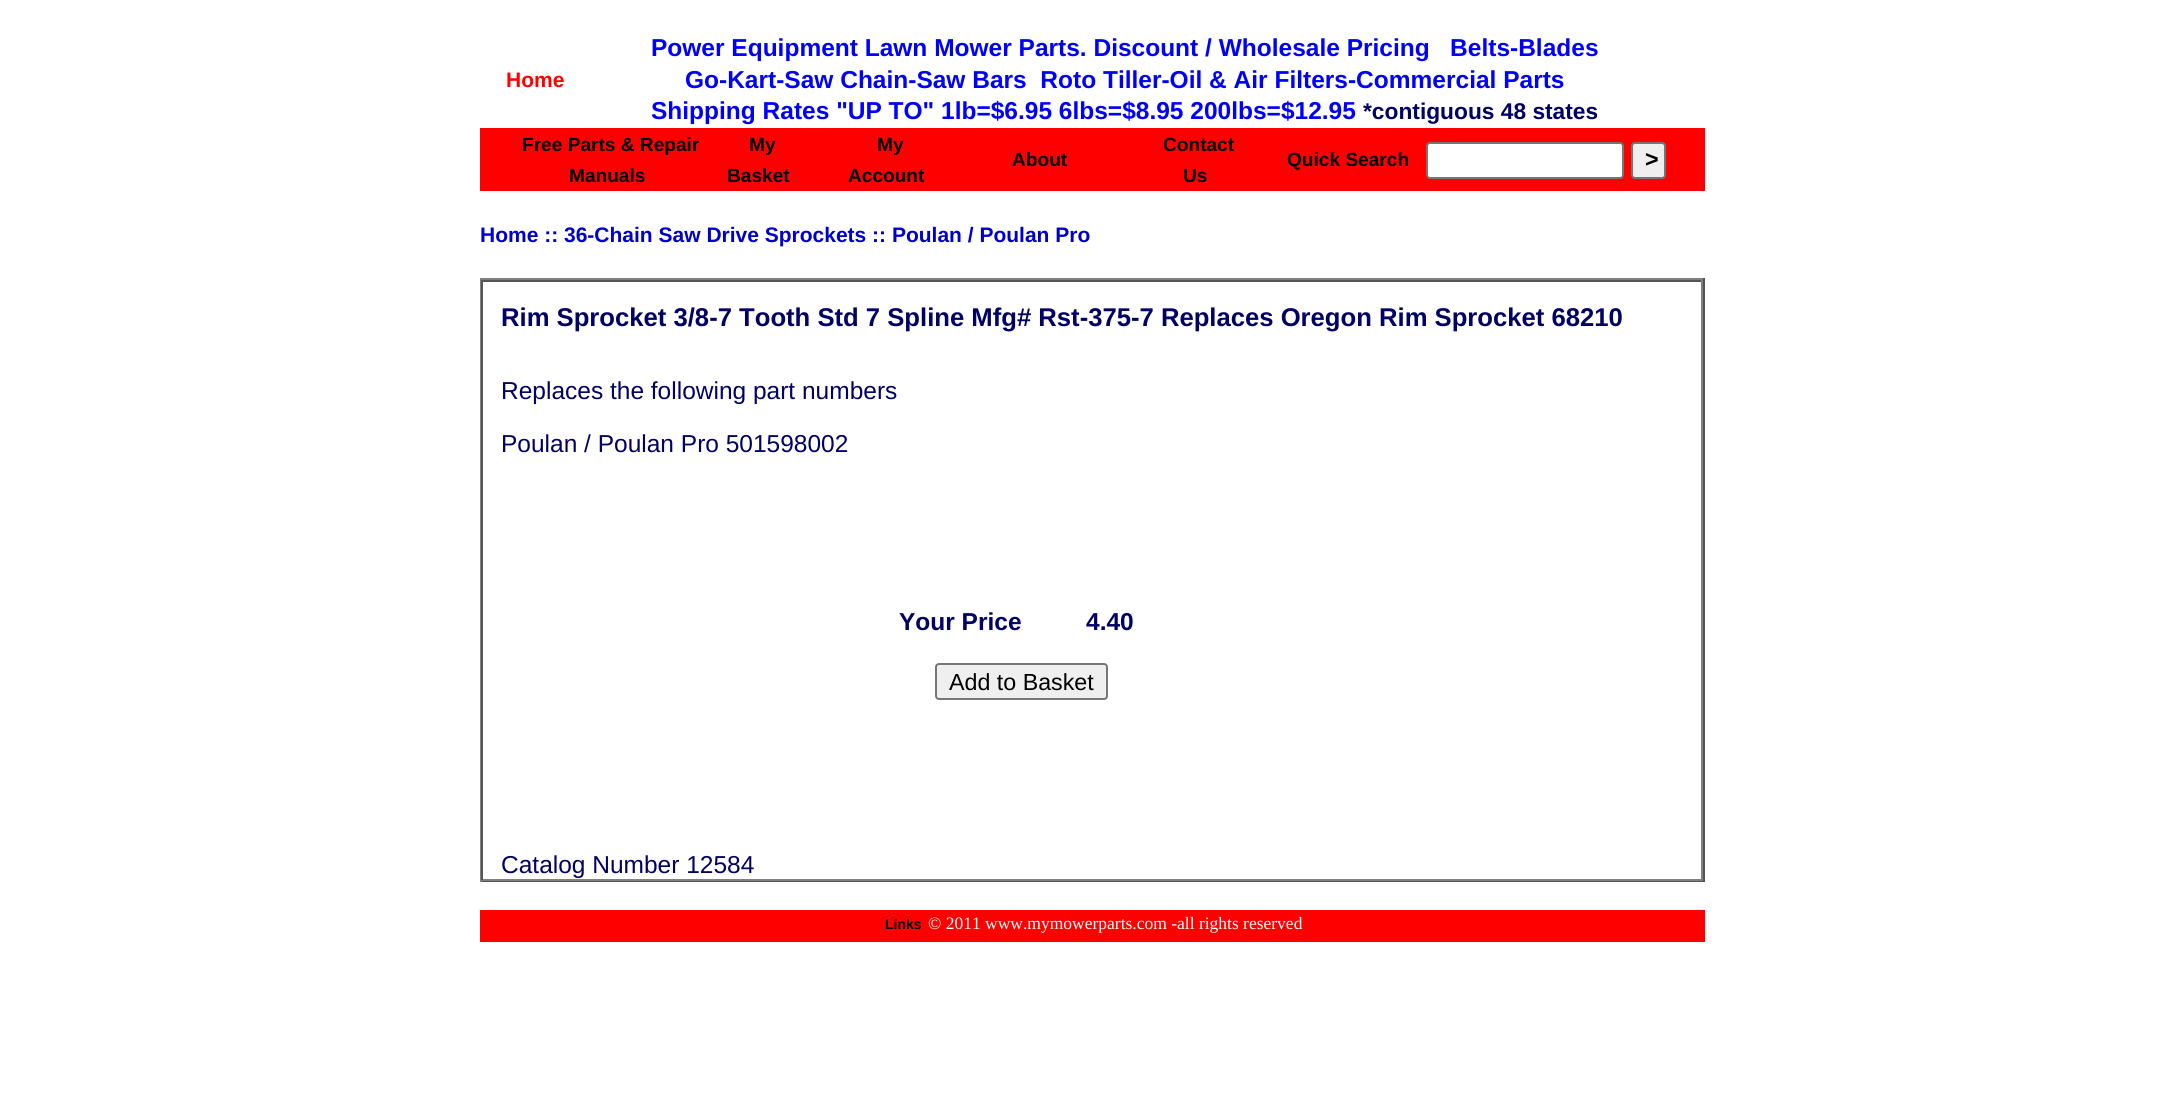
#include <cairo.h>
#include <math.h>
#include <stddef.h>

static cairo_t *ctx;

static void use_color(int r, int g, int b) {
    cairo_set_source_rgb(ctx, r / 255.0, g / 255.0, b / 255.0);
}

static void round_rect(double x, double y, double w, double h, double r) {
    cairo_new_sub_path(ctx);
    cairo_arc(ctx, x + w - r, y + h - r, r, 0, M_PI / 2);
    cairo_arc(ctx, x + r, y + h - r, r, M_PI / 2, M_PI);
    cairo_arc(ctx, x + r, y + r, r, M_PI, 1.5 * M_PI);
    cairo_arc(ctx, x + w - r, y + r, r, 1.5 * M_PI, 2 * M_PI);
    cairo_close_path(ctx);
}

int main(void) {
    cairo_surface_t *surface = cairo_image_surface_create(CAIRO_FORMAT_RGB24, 2184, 1120);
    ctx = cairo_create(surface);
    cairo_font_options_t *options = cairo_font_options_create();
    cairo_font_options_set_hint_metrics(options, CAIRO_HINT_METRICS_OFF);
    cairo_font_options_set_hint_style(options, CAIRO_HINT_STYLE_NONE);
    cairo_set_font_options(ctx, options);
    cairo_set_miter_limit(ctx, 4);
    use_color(255, 255, 255);
    cairo_paint(ctx);
    cairo_select_font_face(ctx, "Liberation Sans", CAIRO_FONT_SLANT_NORMAL, CAIRO_FONT_WEIGHT_BOLD);
    cairo_set_font_size(ctx, 21);
    use_color(255, 0, 0);
    cairo_move_to(ctx, 506, 87);
    cairo_show_text(ctx, "Home");
    cairo_set_font_size(ctx, 24.5);
    use_color(0, 0, 255);
    cairo_move_to(ctx, 651, 56);
    cairo_show_text(ctx, "Power Equipment Lawn Mower Parts. Discount / Wholesale Pricing   Belts-Blades");
    cairo_move_to(ctx, 685, 88);
    cairo_show_text(ctx, "Go-Kart-Saw Chain-Saw Bars  Roto Tiller-Oil & Air Filters-Commercial Parts");
    cairo_move_to(ctx, 651, 119);
    cairo_show_text(ctx, "Shipping Rates \"UP TO\" 1lb=$6.95 6lbs=$8.95 200lbs=$12.95");
    cairo_set_font_size(ctx, 22.75);
    use_color(0, 0, 102);
    cairo_move_to(ctx, 1363, 119);
    cairo_show_text(ctx, "*contiguous 48 states");
    use_color(255, 0, 0);
    cairo_rectangle(ctx, 480, 128, 1225, 63);
    cairo_fill(ctx);
    cairo_set_font_size(ctx, 19.1);
    use_color(0, 0, 0);
    cairo_move_to(ctx, 522, 151);
    cairo_show_text(ctx, "Free Parts & Repair");
    cairo_move_to(ctx, 569, 182);
    cairo_show_text(ctx, "Manuals");
    cairo_move_to(ctx, 749, 151);
    cairo_show_text(ctx, "My");
    cairo_move_to(ctx, 727, 182);
    cairo_show_text(ctx, "Basket");
    cairo_move_to(ctx, 877, 151);
    cairo_show_text(ctx, "My");
    cairo_move_to(ctx, 848, 182);
    cairo_show_text(ctx, "Account");
    cairo_move_to(ctx, 1012, 166);
    cairo_show_text(ctx, "About");
    cairo_move_to(ctx, 1163, 151);
    cairo_show_text(ctx, "Contact");
    cairo_move_to(ctx, 1183, 182);
    cairo_show_text(ctx, "Us");
    cairo_move_to(ctx, 1287, 166);
    cairo_show_text(ctx, "Quick Search");
    use_color(255, 255, 255);
    round_rect(1427, 143, 196, 35, 3);
    cairo_fill_preserve(ctx);
    use_color(118, 118, 118);
    cairo_stroke(ctx);
    use_color(239, 239, 239);
    round_rect(1632, 143, 33, 35, 3);
    cairo_fill_preserve(ctx);
    use_color(118, 118, 118);
    cairo_stroke(ctx);
    cairo_set_font_size(ctx, 23.25);
    use_color(0, 0, 0);
    cairo_move_to(ctx, 1645, 167);
    cairo_show_text(ctx, ">");
    cairo_set_font_size(ctx, 21);
    use_color(0, 0, 204);
    cairo_move_to(ctx, 480, 242);
    cairo_show_text(ctx, "Home :: 36-Chain Saw Drive Sprockets :: Poulan / Poulan Pro");
    use_color(128, 128, 128);
    cairo_rectangle(ctx, 480, 278, 1225, 2);
    cairo_fill(ctx);
    use_color(85, 85, 85);
    cairo_rectangle(ctx, 1703, 278, 2, 604);
    cairo_fill(ctx);
    cairo_rectangle(ctx, 480, 880, 1225, 2);
    cairo_fill(ctx);
    use_color(128, 128, 128);
    cairo_rectangle(ctx, 480, 278, 2, 604);
    cairo_fill(ctx);
    use_color(85, 85, 85);
    cairo_rectangle(ctx, 481, 280, 1222, 2);
    cairo_fill(ctx);
    use_color(128, 128, 128);
    cairo_rectangle(ctx, 1701, 280, 2, 600);
    cairo_fill(ctx);
    cairo_rectangle(ctx, 481, 879, 1222, 2);
    cairo_fill(ctx);
    use_color(85, 85, 85);
    cairo_rectangle(ctx, 481, 280, 2, 600);
    cairo_fill(ctx);
    cairo_set_font_size(ctx, 25.65);
    use_color(0, 0, 102);
    cairo_move_to(ctx, 501, 326);
    cairo_show_text(ctx, "Rim Sprocket 3/8-7 Tooth Std 7 Spline Mfg# Rst-375-7 Replaces Oregon Rim Sprocket 68210");
    cairo_select_font_face(ctx, "Liberation Sans", CAIRO_FONT_SLANT_NORMAL, CAIRO_FONT_WEIGHT_NORMAL);
    cairo_set_font_size(ctx, 24.5);
    cairo_move_to(ctx, 501, 399);
    cairo_show_text(ctx, "Replaces the following part numbers");
    cairo_move_to(ctx, 501, 452);
    cairo_show_text(ctx, "Poulan / Poulan Pro 501598002");
    cairo_select_font_face(ctx, "Liberation Sans", CAIRO_FONT_SLANT_NORMAL, CAIRO_FONT_WEIGHT_BOLD);
    cairo_move_to(ctx, 899, 630);
    cairo_show_text(ctx, "Your Price");
    cairo_move_to(ctx, 1086, 630);
    cairo_show_text(ctx, "4.40");
    use_color(239, 239, 239);
    round_rect(936, 664, 171, 35, 3);
    cairo_fill_preserve(ctx);
    use_color(118, 118, 118);
    cairo_stroke(ctx);
    cairo_select_font_face(ctx, "Liberation Sans", CAIRO_FONT_SLANT_NORMAL, CAIRO_FONT_WEIGHT_NORMAL);
    cairo_set_font_size(ctx, 23.25);
    use_color(0, 0, 0);
    cairo_move_to(ctx, 949, 690);
    cairo_show_text(ctx, "Add to Basket");
    cairo_set_font_size(ctx, 24.5);
    use_color(0, 0, 102);
    cairo_move_to(ctx, 501, 873);
    cairo_show_text(ctx, "Catalog Number 12584");
    use_color(255, 0, 0);
    cairo_rectangle(ctx, 480, 910, 1225, 32);
    cairo_fill(ctx);
    cairo_select_font_face(ctx, "Liberation Sans", CAIRO_FONT_SLANT_NORMAL, CAIRO_FONT_WEIGHT_BOLD);
    cairo_set_font_size(ctx, 14);
    use_color(0, 0, 0);
    cairo_move_to(ctx, 885, 929);
    cairo_show_text(ctx, "Links");
    cairo_select_font_face(ctx, "Liberation Serif", CAIRO_FONT_SLANT_NORMAL, CAIRO_FONT_WEIGHT_NORMAL);
    cairo_set_font_size(ctx, 17.5);
    use_color(255, 255, 255);
    cairo_move_to(ctx, 928, 929);
    cairo_show_text(ctx, "© 2011 www.mymowerparts.com -all rights reserved");
    cairo_surface_write_to_png(surface, "result.png");
    cairo_font_options_destroy(options);
    cairo_destroy(ctx);
    cairo_surface_destroy(surface);
    return 0;
}
